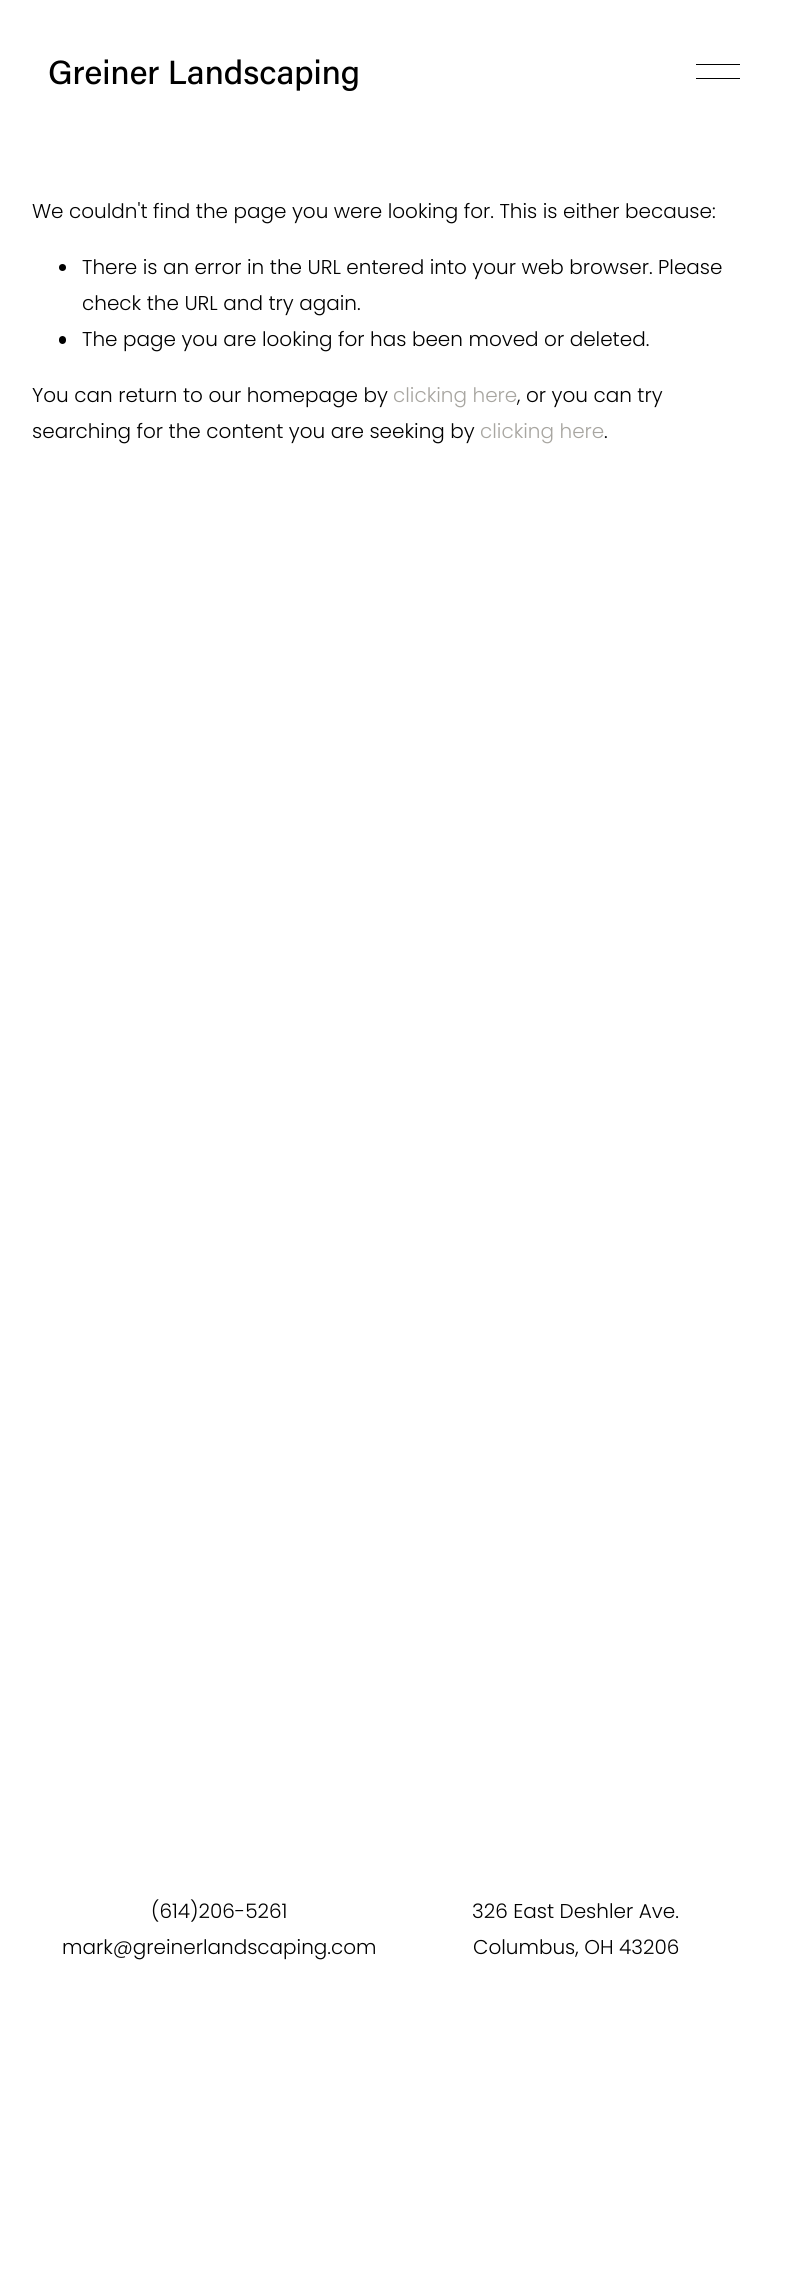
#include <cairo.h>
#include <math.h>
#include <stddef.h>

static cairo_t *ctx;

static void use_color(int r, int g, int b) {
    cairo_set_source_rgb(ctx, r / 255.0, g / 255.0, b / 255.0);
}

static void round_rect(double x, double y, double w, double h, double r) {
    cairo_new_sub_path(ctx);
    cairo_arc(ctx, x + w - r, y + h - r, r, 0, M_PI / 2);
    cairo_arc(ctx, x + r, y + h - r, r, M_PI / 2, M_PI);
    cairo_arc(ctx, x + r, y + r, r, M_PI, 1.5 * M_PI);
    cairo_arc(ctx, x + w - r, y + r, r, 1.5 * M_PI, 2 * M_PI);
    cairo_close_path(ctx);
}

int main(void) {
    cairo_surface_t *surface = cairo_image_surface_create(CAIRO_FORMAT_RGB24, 795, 2280);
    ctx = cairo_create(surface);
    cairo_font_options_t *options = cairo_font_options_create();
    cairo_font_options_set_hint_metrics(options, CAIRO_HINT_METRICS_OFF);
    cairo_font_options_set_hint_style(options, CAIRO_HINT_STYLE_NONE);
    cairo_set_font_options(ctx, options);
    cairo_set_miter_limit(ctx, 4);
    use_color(255, 255, 255);
    cairo_paint(ctx);
    cairo_select_font_face(ctx, "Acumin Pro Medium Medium", CAIRO_FONT_SLANT_NORMAL, CAIRO_FONT_WEIGHT_NORMAL);
    cairo_set_font_size(ctx, 33.5);
    use_color(0, 0, 0);
    cairo_move_to(ctx, 48, 84);
    cairo_show_text(ctx, "Greiner Landscaping");
    cairo_rectangle(ctx, 696, 64, 44, 1);
    cairo_fill(ctx);
    cairo_rectangle(ctx, 696, 78, 44, 1);
    cairo_fill(ctx);
    cairo_select_font_face(ctx, "Poppins Light", CAIRO_FONT_SLANT_NORMAL, CAIRO_FONT_WEIGHT_NORMAL);
    cairo_set_font_size(ctx, 20);
    cairo_move_to(ctx, 32, 218);
    cairo_show_text(ctx, "We couldn't find the page you were looking for. This is either because:");
    cairo_new_path(ctx);
    cairo_arc(ctx, 62.5, 267.5, 3.5, 0, 2 * M_PI);
    cairo_fill(ctx);
    cairo_move_to(ctx, 82, 274);
    cairo_show_text(ctx, "There is an error in the URL entered into your web browser. Please");
    cairo_move_to(ctx, 82, 310);
    cairo_show_text(ctx, "check the URL and try again.");
    round_rect(59, 336, 7, 8, 3.5);
    cairo_fill(ctx);
    cairo_move_to(ctx, 82, 346);
    cairo_show_text(ctx, "The page you are looking for has been moved or deleted.");
    cairo_move_to(ctx, 32, 402);
    cairo_show_text(ctx, "You can return to our homepage by");
    use_color(168, 166, 161);
    cairo_move_to(ctx, 393, 402);
    cairo_show_text(ctx, "clicking here");
    use_color(0, 0, 0);
    cairo_move_to(ctx, 517, 402);
    cairo_show_text(ctx, ", or you can try");
    cairo_move_to(ctx, 32, 438);
    cairo_show_text(ctx, "searching for the content you are seeking by");
    use_color(168, 166, 161);
    cairo_move_to(ctx, 480, 438);
    cairo_show_text(ctx, "clicking here");
    use_color(0, 0, 0);
    cairo_move_to(ctx, 604, 438);
    cairo_show_text(ctx, ".");
    cairo_move_to(ctx, 151, 1918);
    cairo_show_text(ctx, "(614)206-5261");
    cairo_move_to(ctx, 62, 1954);
    cairo_show_text(ctx, "mark@greinerlandscaping.com");
    cairo_move_to(ctx, 472, 1918);
    cairo_show_text(ctx, "326 East Deshler Ave.");
    cairo_move_to(ctx, 473, 1954);
    cairo_show_text(ctx, "Columbus, OH 43206");
    cairo_surface_write_to_png(surface, "result.png");
    cairo_font_options_destroy(options);
    cairo_destroy(ctx);
    cairo_surface_destroy(surface);
    return 0;
}
